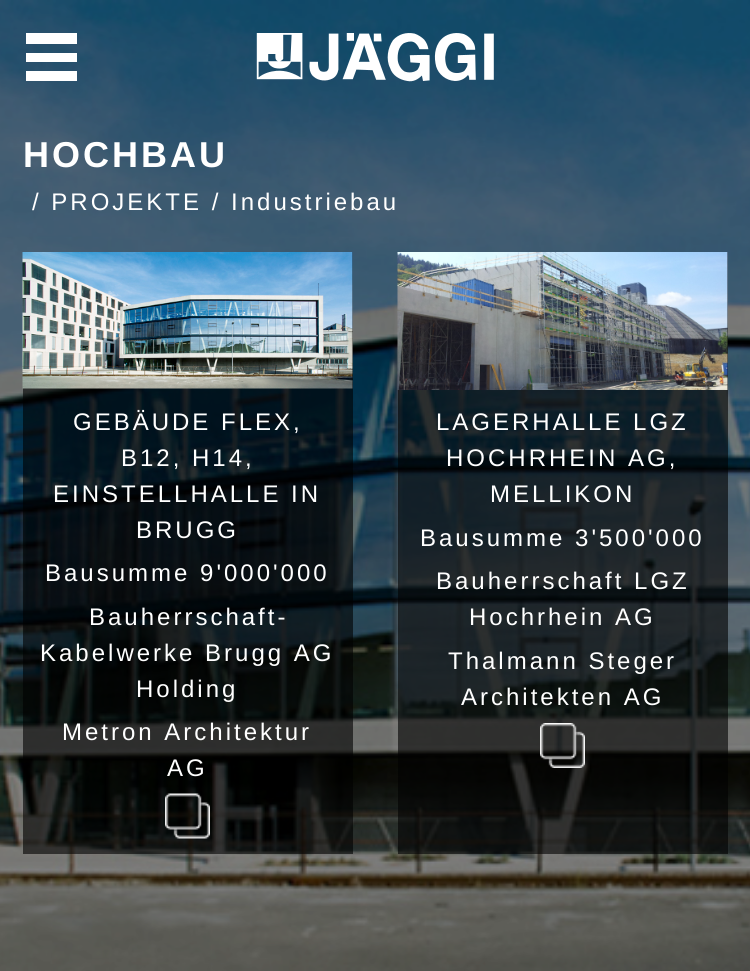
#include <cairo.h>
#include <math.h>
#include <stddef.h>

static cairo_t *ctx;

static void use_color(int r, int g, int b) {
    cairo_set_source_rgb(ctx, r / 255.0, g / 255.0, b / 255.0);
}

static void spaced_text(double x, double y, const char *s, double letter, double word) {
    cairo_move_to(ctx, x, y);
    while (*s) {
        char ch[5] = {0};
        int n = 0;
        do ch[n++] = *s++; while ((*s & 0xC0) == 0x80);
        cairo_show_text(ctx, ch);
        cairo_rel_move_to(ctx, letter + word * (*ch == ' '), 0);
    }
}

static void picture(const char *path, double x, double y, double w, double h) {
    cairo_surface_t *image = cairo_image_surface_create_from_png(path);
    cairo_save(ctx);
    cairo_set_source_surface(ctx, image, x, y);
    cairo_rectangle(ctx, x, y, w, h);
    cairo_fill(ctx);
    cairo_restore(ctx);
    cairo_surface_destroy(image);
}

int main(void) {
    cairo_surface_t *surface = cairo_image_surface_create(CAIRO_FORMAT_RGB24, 750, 971);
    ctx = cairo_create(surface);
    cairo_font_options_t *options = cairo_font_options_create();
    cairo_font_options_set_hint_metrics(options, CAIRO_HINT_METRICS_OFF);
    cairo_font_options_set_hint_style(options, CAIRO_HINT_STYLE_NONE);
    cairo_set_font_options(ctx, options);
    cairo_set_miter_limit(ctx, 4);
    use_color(255, 255, 255);
    cairo_paint(ctx);
    picture("img1.png", 0, 0, 750, 971);
    use_color(255, 255, 255);
    cairo_rectangle(ctx, 26, 33, 51, 11);
    cairo_fill(ctx);
    cairo_rectangle(ctx, 26, 53, 51, 9);
    cairo_fill(ctx);
    cairo_rectangle(ctx, 26, 71, 51, 10);
    cairo_fill(ctx);
    picture("img2.png", 256, 33, 238, 49);
    cairo_select_font_face(ctx, "Liberation Sans", CAIRO_FONT_SLANT_NORMAL, CAIRO_FONT_WEIGHT_BOLD);
    cairo_set_font_size(ctx, 36);
    spaced_text(23, 167, "HOCHBAU", 3, 0);
    cairo_select_font_face(ctx, "Liberation Sans", CAIRO_FONT_SLANT_NORMAL, CAIRO_FONT_WEIGHT_NORMAL);
    cairo_set_font_size(ctx, 24);
    spaced_text(32, 210, "/ PROJEKTE / Industriebau", 3, 0);
    cairo_set_source_rgba(ctx, 0, 0, 0, 0.6);
    cairo_rectangle(ctx, 23, 252, 330, 602);
    cairo_fill(ctx);
    picture("img3.png", 22, 252, 331, 137);
    use_color(255, 255, 255);
    spaced_text(73, 430, "GEBÄUDE FLEX,", 3, 0);
    spaced_text(121, 466, "B12, H14,", 3, 0);
    spaced_text(53, 502, "EINSTELLHALLE IN", 3, 0);
    spaced_text(136, 538, "BRUGG", 3, 0);
    spaced_text(45, 581, "Bausumme 9'000'000", 3, 0);
    spaced_text(89, 625, "Bauherrschaft-", 3, 0);
    spaced_text(40, 661, "Kabelwerke Brugg AG", 3, 0);
    spaced_text(136, 697, "Holding", 3, 0);
    spaced_text(62, 740, "Metron Architektur", 3, 0);
    spaced_text(167, 776, "AG", 3, 0);
    picture("img4.png", 165, 793, 45, 46);
    cairo_set_source_rgba(ctx, 0, 0, 0, 0.6);
    cairo_rectangle(ctx, 398, 252, 330, 602);
    cairo_fill(ctx);
    picture("img5.png", 397, 252, 331, 138);
    use_color(255, 255, 255);
    spaced_text(436, 430, "LAGERHALLE LGZ", 3, 0);
    spaced_text(446, 466, "HOCHRHEIN AG,", 3, 0);
    spaced_text(490, 502, "MELLIKON", 3, 0);
    spaced_text(420, 546, "Bausumme 3'500'000", 3, 0);
    spaced_text(436, 589, "Bauherrschaft LGZ", 3, 0);
    spaced_text(469, 625, "Hochrhein AG", 3, 0);
    spaced_text(448, 669, "Thalmann Steger", 3, 0);
    spaced_text(461, 705, "Architekten AG", 3, 0);
    picture("img6.png", 540, 723, 45, 45);
    cairo_surface_write_to_png(surface, "result.png");
    cairo_font_options_destroy(options);
    cairo_destroy(ctx);
    cairo_surface_destroy(surface);
    return 0;
}
